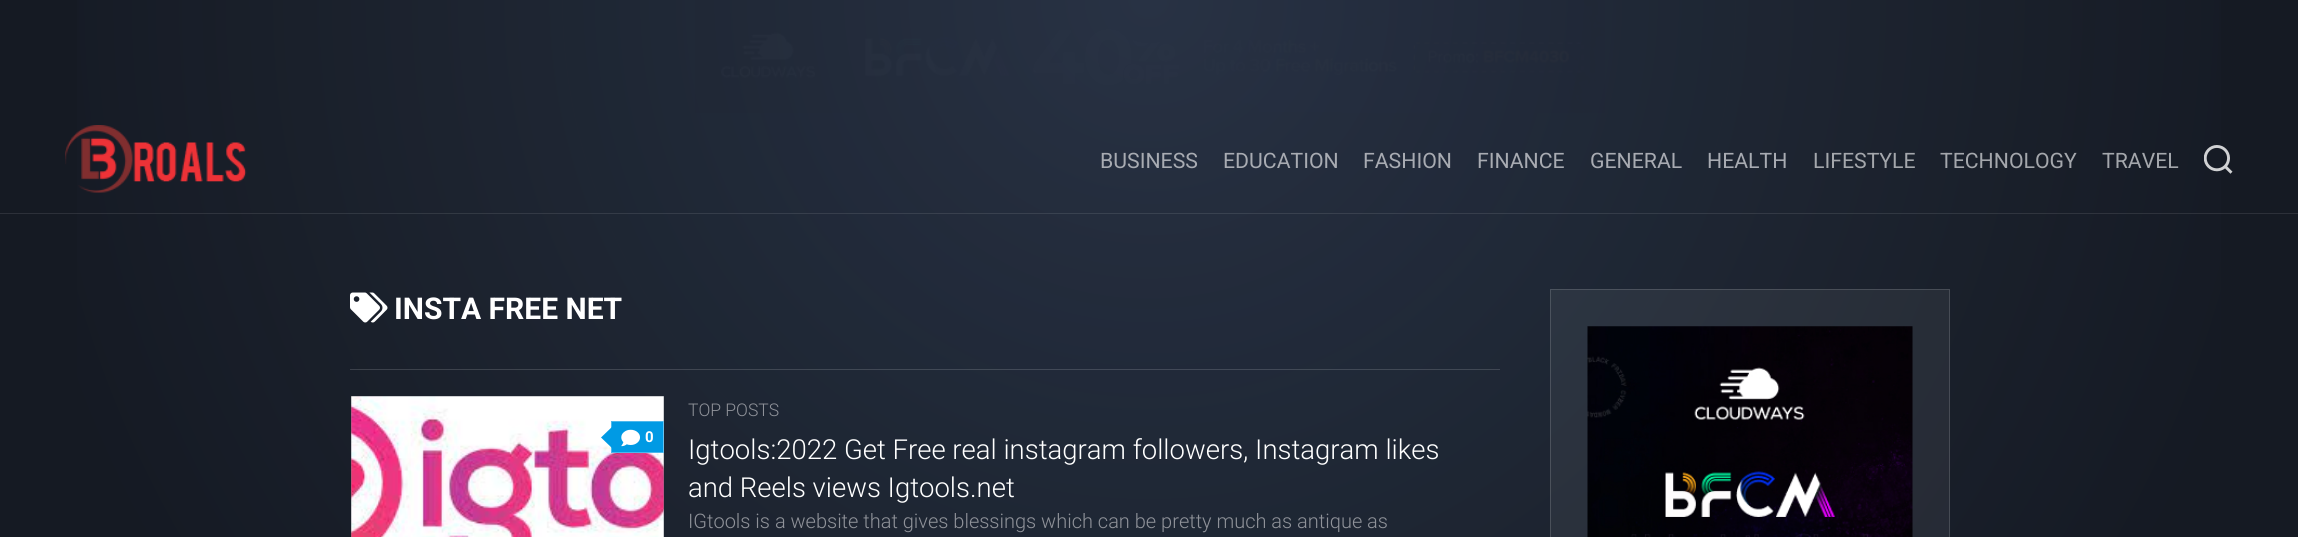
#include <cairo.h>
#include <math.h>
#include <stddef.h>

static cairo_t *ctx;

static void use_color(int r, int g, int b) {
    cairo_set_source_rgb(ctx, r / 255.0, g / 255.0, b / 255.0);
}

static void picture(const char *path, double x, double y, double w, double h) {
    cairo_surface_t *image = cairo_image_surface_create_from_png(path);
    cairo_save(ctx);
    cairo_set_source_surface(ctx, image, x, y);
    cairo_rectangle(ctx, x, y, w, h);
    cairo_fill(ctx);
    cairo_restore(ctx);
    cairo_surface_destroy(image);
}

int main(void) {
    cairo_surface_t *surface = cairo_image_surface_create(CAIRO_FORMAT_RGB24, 2298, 537);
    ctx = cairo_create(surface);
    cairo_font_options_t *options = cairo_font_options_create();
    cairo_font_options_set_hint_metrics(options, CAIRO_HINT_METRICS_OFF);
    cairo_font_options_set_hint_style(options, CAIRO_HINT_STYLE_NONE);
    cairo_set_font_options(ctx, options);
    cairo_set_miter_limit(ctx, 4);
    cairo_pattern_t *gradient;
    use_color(21, 26, 35);
    cairo_paint(ctx);
    picture("img1.png", 695, 0, 910, 113);
    gradient = cairo_pattern_create_radial(0, 0, 0, 0, 0, 1);
    cairo_pattern_set_matrix(gradient, &(cairo_matrix_t){1.0 / 1149, 0, 0, 1.0 / 1125, -1.0 * 1149 / 1149, -1.0 * 0 / 1125});
    cairo_pattern_add_color_stop_rgba(gradient, 0, 0.157, 0.196, 0.267, 1);
    cairo_pattern_add_color_stop_rgba(gradient, 1, 0.082, 0.102, 0.137, 0.95);
    cairo_set_source(ctx, gradient);
    cairo_pattern_destroy(gradient);
    cairo_rectangle(ctx, 77, 0, 2144, 537);
    cairo_fill(ctx);
    cairo_set_source_rgba(ctx, 1, 1, 1, 0.1);
    cairo_rectangle(ctx, 0, 213, 2298, 1);
    cairo_fill(ctx);
    picture("img2.png", 65, 125, 182, 68);
    cairo_select_font_face(ctx, "Roboto", CAIRO_FONT_SLANT_NORMAL, CAIRO_FONT_WEIGHT_NORMAL);
    cairo_set_font_size(ctx, 21.25);
    use_color(168, 171, 178);
    cairo_move_to(ctx, 1100, 168);
    cairo_show_text(ctx, "BUSINESS");
    cairo_move_to(ctx, 1223, 168);
    cairo_show_text(ctx, "EDUCATION");
    cairo_move_to(ctx, 1363, 168);
    cairo_show_text(ctx, "FASHION");
    cairo_move_to(ctx, 1477, 168);
    cairo_show_text(ctx, "FINANCE");
    cairo_move_to(ctx, 1590, 168);
    cairo_show_text(ctx, "GENERAL");
    cairo_move_to(ctx, 1707, 168);
    cairo_show_text(ctx, "HEALTH");
    use_color(164, 167, 172);
    cairo_move_to(ctx, 1813, 168);
    cairo_show_text(ctx, "LIFESTYLE");
    cairo_move_to(ctx, 1940, 168);
    cairo_show_text(ctx, "TECHNOLOGY");
    cairo_move_to(ctx, 2102, 168);
    cairo_show_text(ctx, "TRAVEL");
    picture("img3.png", 2204, 145, 29, 29);
    cairo_set_source_rgba(ctx, 1, 1, 1, 0.15);
    cairo_rectangle(ctx, 350, 369, 1150, 1);
    cairo_fill(ctx);
    picture("img4.png", 350, 292, 38, 31);
    cairo_select_font_face(ctx, "Roboto", CAIRO_FONT_SLANT_NORMAL, CAIRO_FONT_WEIGHT_BOLD);
    cairo_set_font_size(ctx, 30);
    use_color(255, 255, 255);
    cairo_move_to(ctx, 394, 319);
    cairo_show_text(ctx, "INSTA FREE NET");
    picture("img5.png", 351, 396, 313, 141);
    use_color(0, 154, 228);
    cairo_rectangle(ctx, 612, 422, 51, 30);
    cairo_fill(ctx);
    picture("img6.png", 621, 429, 19, 18);
    cairo_rectangle(ctx, 611.5, 421.5, 52, 31);
    use_color(77, 184, 236);
    cairo_set_line_width(ctx, 1);
    cairo_stroke(ctx);
    cairo_rectangle(ctx, 351.5, 396.5, 312, 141);
    cairo_set_source_rgba(ctx, 1, 1, 1, 0.15);
    cairo_stroke(ctx);
    use_color(0, 154, 228);
    cairo_new_path(ctx);
    cairo_move_to(ctx, 614, 425);
    cairo_line_to(ctx, 614, 450);
    cairo_line_to(ctx, 601, 437.5);
    cairo_close_path(ctx);
    cairo_fill(ctx);
    cairo_set_font_size(ctx, 15);
    use_color(255, 255, 255);
    cairo_move_to(ctx, 645, 442);
    cairo_show_text(ctx, "0");
    cairo_select_font_face(ctx, "Roboto Light", CAIRO_FONT_SLANT_NORMAL, CAIRO_FONT_WEIGHT_NORMAL);
    cairo_set_font_size(ctx, 17.5);
    use_color(143, 146, 153);
    cairo_move_to(ctx, 688, 416);
    cairo_show_text(ctx, "TOP POSTS");
    cairo_set_font_size(ctx, 27.5);
    use_color(255, 255, 255);
    cairo_move_to(ctx, 688, 459);
    cairo_show_text(ctx, "Igtools:2022 Get Free real instagram followers, Instagram likes");
    cairo_move_to(ctx, 688, 497);
    cairo_show_text(ctx, "and Reels views Igtools.net");
    cairo_set_font_size(ctx, 20);
    use_color(143, 146, 153);
    cairo_move_to(ctx, 688, 528);
    cairo_show_text(ctx, "IGtools is a website that gives blessings which can be pretty much as antique as");
    cairo_set_source_rgba(ctx, 1, 1, 1, 0.06);
    cairo_rectangle(ctx, 1550, 289, 400, 248);
    cairo_fill(ctx);
    picture("img7.png", 1587, 326, 326, 211);
    cairo_rectangle(ctx, 1550.5, 289.5, 399, 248);
    cairo_set_source_rgba(ctx, 1, 1, 1, 0.15);
    cairo_stroke(ctx);
    cairo_surface_write_to_png(surface, "result.png");
    cairo_font_options_destroy(options);
    cairo_destroy(ctx);
    cairo_surface_destroy(surface);
    return 0;
}
